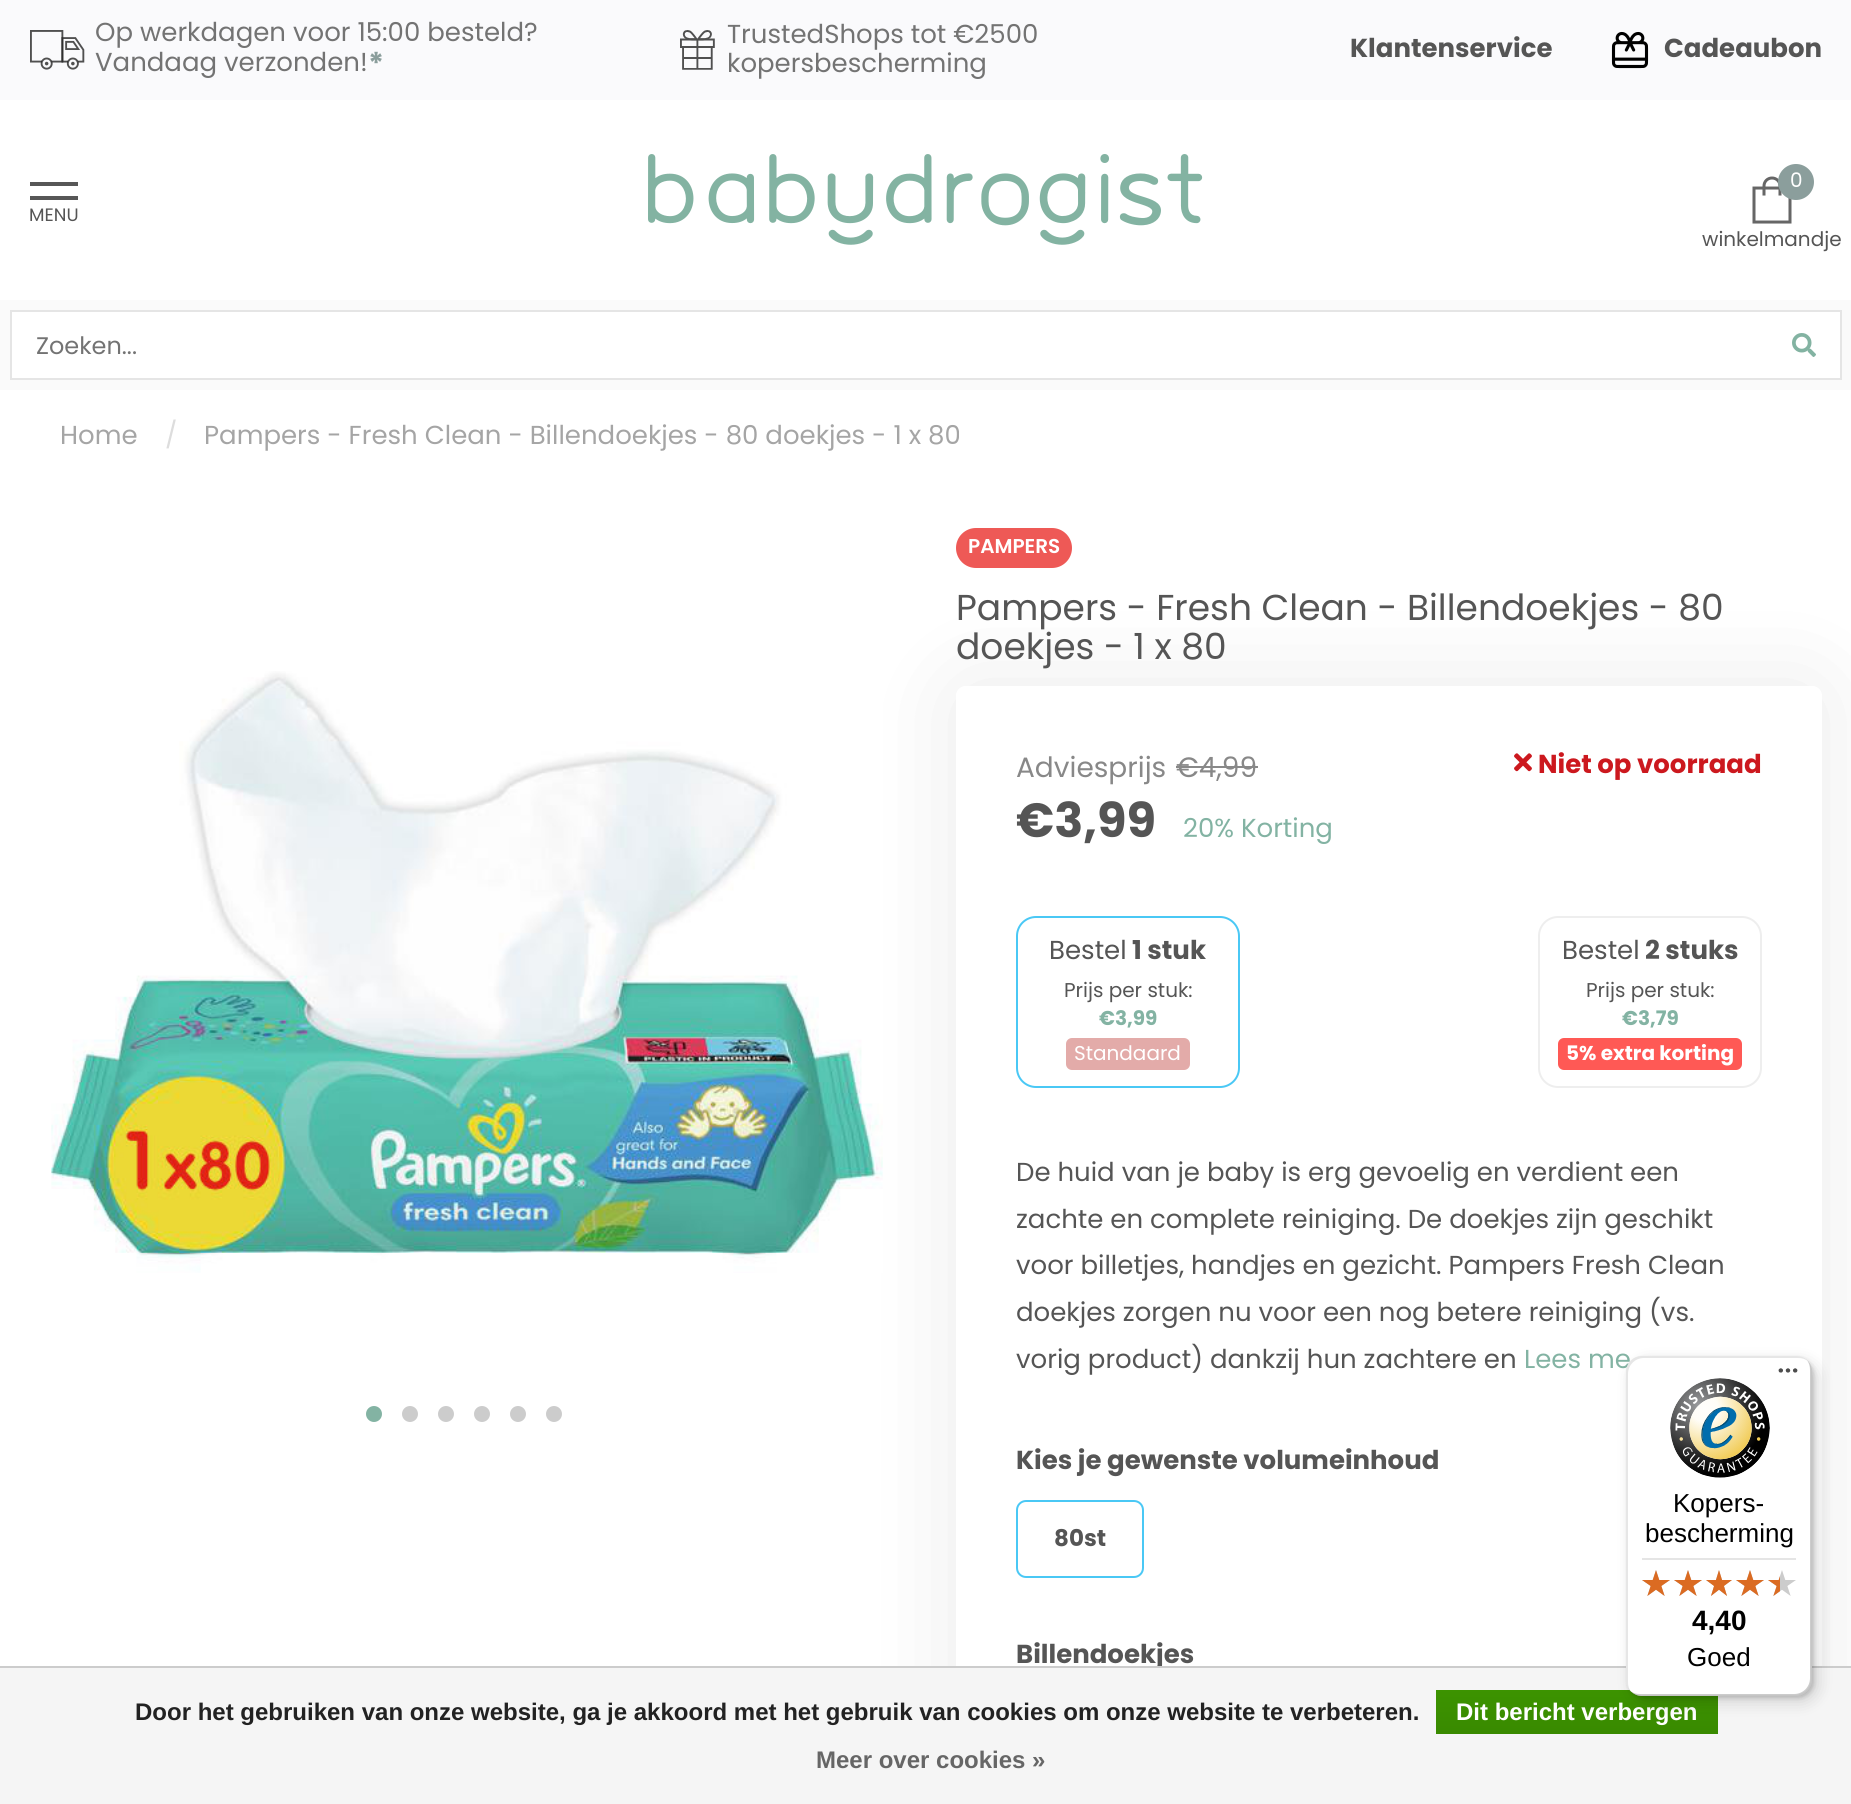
#include <cairo.h>
#include <math.h>
#include <stddef.h>

static cairo_t *ctx;

static void use_color(int r, int g, int b) {
    cairo_set_source_rgb(ctx, r / 255.0, g / 255.0, b / 255.0);
}

static void round_rect(double x, double y, double w, double h, double r) {
    cairo_new_sub_path(ctx);
    cairo_arc(ctx, x + w - r, y + h - r, r, 0, M_PI / 2);
    cairo_arc(ctx, x + r, y + h - r, r, M_PI / 2, M_PI);
    cairo_arc(ctx, x + r, y + r, r, M_PI, 1.5 * M_PI);
    cairo_arc(ctx, x + w - r, y + r, r, 1.5 * M_PI, 2 * M_PI);
    cairo_close_path(ctx);
}

static void shadow(double x, double y, double w, double h, double r, double blur, double alpha) {
    cairo_push_group_with_content(ctx, CAIRO_CONTENT_ALPHA);
    cairo_set_operator(ctx, CAIRO_OPERATOR_SOURCE);
    for (int i = 15; i >= -15 && fmin(w, h) + blur * i / 3 > 0; i -= 2) {
        double e = blur * i / 6;
        cairo_set_source_rgba(ctx, 0, 0, 0, alpha * erfc((i - 1) / 8.5) / 2);
        round_rect(x - e, y - e, w + 2 * e, h + 2 * e, fmax(0, fmin(r + e + blur * .6, fmin(w, h) / 2 + e)));
        cairo_fill(ctx);
    }
    cairo_pattern_t *soft = cairo_pop_group(ctx);
    cairo_mask(ctx, soft);
    cairo_pattern_destroy(soft);
}

static void picture(const char *path, double x, double y, double w, double h) {
    cairo_surface_t *image = cairo_image_surface_create_from_png(path);
    cairo_save(ctx);
    cairo_set_source_surface(ctx, image, x, y);
    cairo_rectangle(ctx, x, y, w, h);
    cairo_fill(ctx);
    cairo_restore(ctx);
    cairo_surface_destroy(image);
}

int main(void) {
    cairo_surface_t *surface = cairo_image_surface_create(CAIRO_FORMAT_RGB24, 1851, 1804);
    ctx = cairo_create(surface);
    cairo_font_options_t *options = cairo_font_options_create();
    cairo_font_options_set_hint_metrics(options, CAIRO_HINT_METRICS_OFF);
    cairo_font_options_set_hint_style(options, CAIRO_HINT_STYLE_NONE);
    cairo_set_font_options(ctx, options);
    cairo_set_miter_limit(ctx, 4);
    cairo_pattern_t *gradient;
    use_color(255, 255, 255);
    cairo_paint(ctx);
    use_color(250, 250, 252);
    cairo_rectangle(ctx, 0, 0, 1851, 100);
    cairo_fill(ctx);
    picture("img1.png", 30, 30, 55, 40);
    cairo_select_font_face(ctx, "Poppins", CAIRO_FONT_SLANT_NORMAL, CAIRO_FONT_WEIGHT_NORMAL);
    cairo_set_font_size(ctx, 26);
    use_color(115, 115, 115);
    cairo_move_to(ctx, 95, 41);
    cairo_show_text(ctx, "Op werkdagen voor 15:00 besteld?");
    cairo_move_to(ctx, 95, 71);
    cairo_show_text(ctx, "Vandaag verzonden!");
    cairo_select_font_face(ctx, "Poppins", CAIRO_FONT_SLANT_NORMAL, CAIRO_FONT_WEIGHT_BOLD);
    cairo_set_font_size(ctx, 30);
    use_color(139, 158, 156);
    cairo_move_to(ctx, 368, 74);
    cairo_show_text(ctx, "*");
    picture("img2.png", 680, 30, 35, 40);
    cairo_select_font_face(ctx, "Poppins", CAIRO_FONT_SLANT_NORMAL, CAIRO_FONT_WEIGHT_NORMAL);
    cairo_set_font_size(ctx, 26);
    use_color(115, 115, 115);
    cairo_move_to(ctx, 727, 43);
    cairo_show_text(ctx, "TrustedShops tot €2500");
    cairo_move_to(ctx, 727, 72);
    cairo_show_text(ctx, "kopersbescherming");
    cairo_select_font_face(ctx, "Poppins", CAIRO_FONT_SLANT_NORMAL, CAIRO_FONT_WEIGHT_BOLD);
    use_color(85, 85, 85);
    cairo_move_to(ctx, 1350, 57);
    cairo_show_text(ctx, "Klantenservice");
    picture("img3.png", 1611, 31, 38, 38);
    cairo_move_to(ctx, 1664, 57);
    cairo_show_text(ctx, "Cadeaubon");
    use_color(87, 87, 87);
    cairo_rectangle(ctx, 30, 182, 48, 4);
    cairo_fill(ctx);
    cairo_rectangle(ctx, 30, 196, 48, 4);
    cairo_fill(ctx);
    cairo_select_font_face(ctx, "Poppins", CAIRO_FONT_SLANT_NORMAL, CAIRO_FONT_WEIGHT_NORMAL);
    cairo_set_font_size(ctx, 18);
    use_color(85, 85, 85);
    cairo_move_to(ctx, 29, 221);
    cairo_show_text(ctx, "MENU");
    picture("img4.png", 648, 154, 555, 91);
    cairo_new_path(ctx);
    cairo_move_to(ctx, 1790, 222);
    cairo_line_to(ctx, 1754, 222);
    cairo_line_to(ctx, 1754, 188);
    cairo_line_to(ctx, 1790, 188);
    cairo_close_path(ctx);
    cairo_move_to(ctx, 1764, 194);
    cairo_line_to(ctx, 1764, 186);
    cairo_curve_to(ctx, 1764, 181.5, 1767.5, 178, 1772, 178);
    cairo_curve_to(ctx, 1776.5, 178, 1780, 181.5, 1780, 186);
    cairo_line_to(ctx, 1780, 194);
    use_color(102, 102, 102);
    cairo_set_line_width(ctx, 3);
    cairo_set_line_cap(ctx, CAIRO_LINE_CAP_SQUARE);
    cairo_stroke(ctx);
    use_color(139, 158, 156);
    cairo_arc(ctx, 1796, 182, 18, 0, 2 * M_PI);
    cairo_fill(ctx);
    cairo_set_font_size(ctx, 20);
    use_color(255, 255, 255);
    cairo_move_to(ctx, 1790, 187);
    cairo_show_text(ctx, "0");
    use_color(85, 85, 85);
    cairo_move_to(ctx, 1702, 246);
    cairo_show_text(ctx, "winkelmandje");
    use_color(250, 250, 250);
    cairo_rectangle(ctx, 0, 300, 1851, 90);
    cairo_fill(ctx);
    use_color(255, 255, 255);
    cairo_rectangle(ctx, 11, 311, 1830, 68);
    cairo_fill_preserve(ctx);
    use_color(229, 229, 229);
    cairo_set_line_width(ctx, 2);
    cairo_set_line_cap(ctx, CAIRO_LINE_CAP_BUTT);
    cairo_stroke(ctx);
    cairo_set_font_size(ctx, 24);
    use_color(115, 115, 115);
    cairo_move_to(ctx, 36, 354);
    cairo_show_text(ctx, "Zoeken...");
    picture("img5.png", 1792, 333, 24, 24);
    cairo_set_font_size(ctx, 26);
    use_color(165, 165, 165);
    cairo_move_to(ctx, 60, 444);
    cairo_show_text(ctx, "Home");
    use_color(221, 221, 221);
    cairo_move_to(ctx, 165, 444);
    cairo_show_text(ctx, "/");
    use_color(165, 165, 165);
    cairo_move_to(ctx, 204, 444);
    cairo_show_text(ctx, "Pampers - Fresh Clean - Billendoekjes - 80 doekjes - 1 x 80");
    cairo_save(ctx);
    cairo_set_fill_rule(ctx, CAIRO_FILL_RULE_EVEN_ODD);
    cairo_new_path(ctx);
    cairo_move_to(ctx, 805, 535);
    cairo_line_to(ctx, 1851, 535);
    cairo_line_to(ctx, 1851, 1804);
    cairo_line_to(ctx, 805, 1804);
    cairo_close_path(ctx);
    cairo_move_to(ctx, 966, 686);
    cairo_line_to(ctx, 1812, 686);
    cairo_curve_to(ctx, 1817.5, 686, 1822, 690.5, 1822, 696);
    cairo_line_to(ctx, 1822, 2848);
    cairo_curve_to(ctx, 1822, 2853.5, 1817.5, 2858, 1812, 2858);
    cairo_line_to(ctx, 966, 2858);
    cairo_curve_to(ctx, 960.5, 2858, 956, 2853.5, 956, 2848);
    cairo_line_to(ctx, 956, 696);
    cairo_curve_to(ctx, 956, 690.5, 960.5, 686, 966, 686);
    cairo_close_path(ctx);
    cairo_clip(ctx);
    use_color(0, 0, 0);
    shadow(956, 686, 866, 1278, 10, 50, 0.08);
    cairo_restore(ctx);
    picture("img6.png", 51, 671, 832, 602);
    use_color(131, 179, 163);
    cairo_arc(ctx, 374, 1414, 8, 0, 2 * M_PI);
    cairo_fill(ctx);
    use_color(204, 204, 204);
    cairo_arc(ctx, 410, 1414, 8, 0, 2 * M_PI);
    cairo_fill(ctx);
    cairo_arc(ctx, 446, 1414, 8, 0, 2 * M_PI);
    cairo_fill(ctx);
    cairo_arc(ctx, 482, 1414, 8, 0, 2 * M_PI);
    cairo_fill(ctx);
    cairo_arc(ctx, 518, 1414, 8, 0, 2 * M_PI);
    cairo_fill(ctx);
    cairo_arc(ctx, 554, 1414, 8, 0, 2 * M_PI);
    cairo_fill(ctx);
    use_color(238, 89, 86);
    round_rect(956, 528, 116, 40, 20);
    cairo_fill(ctx);
    cairo_select_font_face(ctx, "Poppins SemiBold", CAIRO_FONT_SLANT_NORMAL, CAIRO_FONT_WEIGHT_NORMAL);
    cairo_set_font_size(ctx, 20);
    use_color(255, 255, 255);
    cairo_move_to(ctx, 968, 553);
    cairo_show_text(ctx, "PAMPERS");
    cairo_select_font_face(ctx, "Poppins", CAIRO_FONT_SLANT_NORMAL, CAIRO_FONT_WEIGHT_NORMAL);
    cairo_set_font_size(ctx, 36);
    use_color(85, 85, 85);
    cairo_move_to(ctx, 956, 620);
    cairo_show_text(ctx, "Pampers - Fresh Clean - Billendoekjes - 80");
    cairo_move_to(ctx, 956, 659);
    cairo_show_text(ctx, "doekjes - 1 x 80");
    cairo_set_font_size(ctx, 28);
    use_color(136, 136, 136);
    cairo_move_to(ctx, 1016, 777);
    cairo_show_text(ctx, "Adviesprijs");
    cairo_move_to(ctx, 1176, 777);
    cairo_show_text(ctx, "€4,99");
    cairo_rectangle(ctx, 1176, 766, 82, 2);
    cairo_fill(ctx);
    cairo_select_font_face(ctx, "Poppins", CAIRO_FONT_SLANT_NORMAL, CAIRO_FONT_WEIGHT_BOLD);
    cairo_set_font_size(ctx, 48);
    use_color(85, 85, 85);
    cairo_move_to(ctx, 1016, 837);
    cairo_show_text(ctx, "€3,99");
    cairo_select_font_face(ctx, "Poppins", CAIRO_FONT_SLANT_NORMAL, CAIRO_FONT_WEIGHT_NORMAL);
    cairo_set_font_size(ctx, 26);
    use_color(131, 179, 163);
    cairo_move_to(ctx, 1183, 837);
    cairo_show_text(ctx, "20% Korting");
    picture("img7.png", 1514, 753, 18, 19);
    cairo_select_font_face(ctx, "Poppins", CAIRO_FONT_SLANT_NORMAL, CAIRO_FONT_WEIGHT_BOLD);
    use_color(204, 24, 30);
    cairo_move_to(ctx, 1538, 773);
    cairo_show_text(ctx, "Niet op voorraad");
    round_rect(1017, 917, 222, 170, 19);
    use_color(74, 200, 245);
    cairo_stroke(ctx);
    cairo_select_font_face(ctx, "Poppins", CAIRO_FONT_SLANT_NORMAL, CAIRO_FONT_WEIGHT_NORMAL);
    use_color(85, 85, 85);
    cairo_move_to(ctx, 1049, 959);
    cairo_show_text(ctx, "Bestel");
    cairo_select_font_face(ctx, "Poppins", CAIRO_FONT_SLANT_NORMAL, CAIRO_FONT_WEIGHT_BOLD);
    cairo_move_to(ctx, 1132, 959);
    cairo_show_text(ctx, "1 stuk");
    cairo_select_font_face(ctx, "Poppins", CAIRO_FONT_SLANT_NORMAL, CAIRO_FONT_WEIGHT_NORMAL);
    cairo_set_font_size(ctx, 20);
    cairo_move_to(ctx, 1064, 997);
    cairo_show_text(ctx, "Prijs per stuk:");
    cairo_select_font_face(ctx, "Poppins", CAIRO_FONT_SLANT_NORMAL, CAIRO_FONT_WEIGHT_BOLD);
    use_color(131, 179, 163);
    cairo_move_to(ctx, 1099, 1025);
    cairo_show_text(ctx, "€3,99");
    use_color(227, 171, 169);
    round_rect(1066, 1038, 124, 32, 6);
    cairo_fill(ctx);
    cairo_select_font_face(ctx, "Poppins", CAIRO_FONT_SLANT_NORMAL, CAIRO_FONT_WEIGHT_NORMAL);
    use_color(255, 255, 255);
    cairo_move_to(ctx, 1074, 1060);
    cairo_show_text(ctx, "Standaard");
    round_rect(1539, 917, 222, 170, 19);
    use_color(238, 238, 238);
    cairo_stroke(ctx);
    cairo_set_font_size(ctx, 26);
    use_color(85, 85, 85);
    cairo_move_to(ctx, 1562, 959);
    cairo_show_text(ctx, "Bestel");
    cairo_select_font_face(ctx, "Poppins", CAIRO_FONT_SLANT_NORMAL, CAIRO_FONT_WEIGHT_BOLD);
    cairo_move_to(ctx, 1645, 959);
    cairo_show_text(ctx, "2 stuks");
    cairo_select_font_face(ctx, "Poppins", CAIRO_FONT_SLANT_NORMAL, CAIRO_FONT_WEIGHT_NORMAL);
    cairo_set_font_size(ctx, 20);
    cairo_move_to(ctx, 1586, 997);
    cairo_show_text(ctx, "Prijs per stuk:");
    cairo_select_font_face(ctx, "Poppins", CAIRO_FONT_SLANT_NORMAL, CAIRO_FONT_WEIGHT_BOLD);
    use_color(131, 179, 163);
    cairo_move_to(ctx, 1622, 1025);
    cairo_show_text(ctx, "€3,79");
    use_color(255, 89, 85);
    round_rect(1558, 1038, 184, 32, 6);
    cairo_fill(ctx);
    use_color(255, 255, 255);
    cairo_move_to(ctx, 1566, 1060);
    cairo_show_text(ctx, "5% extra korting");
    cairo_select_font_face(ctx, "Poppins", CAIRO_FONT_SLANT_NORMAL, CAIRO_FONT_WEIGHT_NORMAL);
    cairo_set_font_size(ctx, 26);
    use_color(85, 85, 85);
    cairo_move_to(ctx, 1016, 1181);
    cairo_show_text(ctx, "De huid van je baby is erg gevoelig en verdient een");
    cairo_move_to(ctx, 1016, 1228);
    cairo_show_text(ctx, "zachte en complete reiniging. De doekjes zijn geschikt");
    cairo_move_to(ctx, 1016, 1274);
    cairo_show_text(ctx, "voor billetjes, handjes en gezicht. Pampers Fresh Clean");
    cairo_move_to(ctx, 1016, 1321);
    cairo_show_text(ctx, "doekjes zorgen nu voor een nog betere reiniging (vs.");
    cairo_move_to(ctx, 1016, 1368);
    cairo_show_text(ctx, "vorig product) dankzij hun zachtere en");
    use_color(131, 179, 163);
    cairo_move_to(ctx, 1524, 1368);
    cairo_show_text(ctx, "Lees me");
    cairo_select_font_face(ctx, "Poppins", CAIRO_FONT_SLANT_NORMAL, CAIRO_FONT_WEIGHT_BOLD);
    use_color(85, 85, 85);
    cairo_move_to(ctx, 1016, 1469);
    cairo_show_text(ctx, "Kies je gewenste volumeinhoud");
    round_rect(1017, 1501, 126, 76, 9);
    use_color(74, 200, 245);
    cairo_stroke(ctx);
    cairo_set_font_size(ctx, 23);
    use_color(85, 85, 85);
    cairo_move_to(ctx, 1054, 1546);
    cairo_show_text(ctx, "80st");
    cairo_set_font_size(ctx, 26);
    cairo_move_to(ctx, 1016, 1663);
    cairo_show_text(ctx, "Billendoekjes");
    use_color(245, 245, 245);
    cairo_rectangle(ctx, 0, 1668, 1851, 136);
    cairo_fill(ctx);
    use_color(204, 204, 204);
    cairo_rectangle(ctx, 0, 1666, 1851, 2);
    cairo_fill(ctx);
    cairo_select_font_face(ctx, "Liberation Sans", CAIRO_FONT_SLANT_NORMAL, CAIRO_FONT_WEIGHT_BOLD);
    cairo_set_font_size(ctx, 24);
    use_color(34, 34, 34);
    cairo_move_to(ctx, 135, 1720);
    cairo_show_text(ctx, "Door het gebruiken van onze website, ga je akkoord met het gebruik van cookies om onze website te verbeteren.");
    gradient = cairo_pattern_create_linear(1577, 1690, 1577, 1734);
    cairo_pattern_add_color_stop_rgba(gradient, 0, 0.235, 0.576, 0, 1);
    cairo_pattern_add_color_stop_rgba(gradient, 1, 0.224, 0.541, 0, 1);
    cairo_set_source(ctx, gradient);
    cairo_pattern_destroy(gradient);
    cairo_rectangle(ctx, 1436, 1690, 282, 44);
    cairo_fill(ctx);
    use_color(255, 255, 255);
    cairo_move_to(ctx, 1456, 1720);
    cairo_show_text(ctx, "Dit bericht verbergen");
    use_color(102, 102, 102);
    cairo_move_to(ctx, 816, 1768);
    cairo_show_text(ctx, "Meer over cookies »");
    use_color(0, 0, 0);
    shadow(1632, 1362, 186, 340, 16, 8, 0.15);
    shadow(1628, 1358, 186, 340, 16, 2, 0.15);
    use_color(255, 255, 255);
    round_rect(1626, 1356, 186, 340, 16);
    cairo_fill(ctx);
    cairo_set_source_rgba(ctx, 0, 0, 0, 0.1);
    cairo_new_path(ctx);
    cairo_move_to(ctx, 1644, 1358);
    cairo_line_to(ctx, 1798, 1358);
    cairo_curve_to(ctx, 1802, 1358, 1805, 1359, 1808, 1361);
    cairo_curve_to(ctx, 1805, 1358, 1801, 1356, 1796, 1356);
    cairo_line_to(ctx, 1642, 1356);
    cairo_curve_to(ctx, 1633, 1356, 1626, 1363, 1626, 1372);
    cairo_line_to(ctx, 1626, 1680);
    cairo_curve_to(ctx, 1626, 1685, 1628, 1689, 1631, 1692);
    cairo_curve_to(ctx, 1629, 1689, 1628, 1686, 1628, 1682);
    cairo_line_to(ctx, 1628, 1374);
    cairo_curve_to(ctx, 1628, 1365, 1635, 1358, 1644, 1358);
    cairo_close_path(ctx);
    cairo_fill(ctx);
    cairo_set_source_rgba(ctx, 0, 0, 0, 0.2);
    cairo_new_path(ctx);
    cairo_move_to(ctx, 1630, 1691);
    cairo_curve_to(ctx, 1633, 1694, 1637, 1696, 1642, 1696);
    cairo_line_to(ctx, 1796, 1696);
    cairo_curve_to(ctx, 1805, 1696, 1812, 1689, 1812, 1680);
    cairo_line_to(ctx, 1812, 1372);
    cairo_curve_to(ctx, 1812, 1367, 1810, 1363, 1807, 1360);
    cairo_curve_to(ctx, 1809, 1363, 1810, 1366, 1810, 1370);
    cairo_line_to(ctx, 1810, 1678);
    cairo_curve_to(ctx, 1810, 1687, 1803, 1694, 1794, 1694);
    cairo_line_to(ctx, 1640, 1694);
    cairo_curve_to(ctx, 1636, 1694, 1633, 1693, 1630, 1691);
    cairo_close_path(ctx);
    cairo_fill(ctx);
    cairo_set_source_rgba(ctx, 0.196, 0.196, 0.196, 0.2);
    cairo_new_path(ctx);
    cairo_move_to(ctx, 1631, 1691);
    cairo_curve_to(ctx, 1634, 1694, 1638, 1696, 1642, 1696);
    cairo_line_to(ctx, 1796, 1696);
    cairo_curve_to(ctx, 1805, 1696, 1812, 1689, 1812, 1680);
    cairo_line_to(ctx, 1812, 1372);
    cairo_curve_to(ctx, 1812, 1368, 1810, 1364, 1807, 1361);
    cairo_curve_to(ctx, 1810, 1364, 1811, 1367, 1811, 1371);
    cairo_line_to(ctx, 1811, 1679);
    cairo_curve_to(ctx, 1811, 1688, 1804, 1695, 1795, 1695);
    cairo_line_to(ctx, 1641, 1695);
    cairo_curve_to(ctx, 1637, 1695, 1634, 1694, 1631, 1691);
    cairo_close_path(ctx);
    cairo_fill(ctx);
    cairo_set_source_rgba(ctx, 1, 1, 1, 0.3);
    cairo_new_path(ctx);
    cairo_move_to(ctx, 1631, 1691);
    cairo_curve_to(ctx, 1634, 1694, 1638, 1696, 1642, 1696);
    cairo_line_to(ctx, 1796, 1696);
    cairo_curve_to(ctx, 1805, 1696, 1812, 1689, 1812, 1680);
    cairo_line_to(ctx, 1812, 1372);
    cairo_curve_to(ctx, 1812, 1368, 1810, 1364, 1807, 1361);
    cairo_curve_to(ctx, 1810, 1364, 1811, 1367, 1811, 1371);
    cairo_line_to(ctx, 1811, 1679);
    cairo_curve_to(ctx, 1811, 1688, 1804, 1695, 1795, 1695);
    cairo_line_to(ctx, 1641, 1695);
    cairo_curve_to(ctx, 1637, 1695, 1634, 1694, 1631, 1691);
    cairo_close_path(ctx);
    cairo_fill(ctx);
    picture("img8.png", 1778, 1368, 20, 5);
    picture("img9.png", 1670, 1378, 100, 100);
    cairo_select_font_face(ctx, "Liberation Sans", CAIRO_FONT_SLANT_NORMAL, CAIRO_FONT_WEIGHT_NORMAL);
    cairo_set_font_size(ctx, 26);
    use_color(0, 0, 0);
    cairo_move_to(ctx, 1673, 1512);
    cairo_show_text(ctx, "Kopers-");
    cairo_move_to(ctx, 1645, 1542);
    cairo_show_text(ctx, "bescherming");
    use_color(229, 229, 229);
    cairo_rectangle(ctx, 1642, 1558, 154, 2);
    cairo_fill(ctx);
    picture("img10.png", 1642, 1570, 28, 26);
    picture("img10.png", 1674, 1570, 28, 26);
    picture("img11.png", 1706, 1570, 26, 26);
    picture("img10.png", 1736, 1570, 28, 26);
    picture("img10.png", 1768, 1570, 28, 26);
    picture("img12.png", 1642, 1570, 28, 26);
    picture("img12.png", 1674, 1570, 28, 26);
    picture("img13.png", 1706, 1570, 26, 26);
    picture("img12.png", 1736, 1570, 28, 26);
    picture("img14.png", 1768, 1576, 12, 20);
    cairo_select_font_face(ctx, "Liberation Sans", CAIRO_FONT_SLANT_NORMAL, CAIRO_FONT_WEIGHT_BOLD);
    cairo_set_font_size(ctx, 28);
    use_color(0, 0, 0);
    cairo_move_to(ctx, 1692, 1630);
    cairo_show_text(ctx, "4,40");
    cairo_select_font_face(ctx, "Liberation Sans", CAIRO_FONT_SLANT_NORMAL, CAIRO_FONT_WEIGHT_NORMAL);
    cairo_set_font_size(ctx, 26);
    cairo_move_to(ctx, 1687, 1666);
    cairo_show_text(ctx, "Goed");
    cairo_surface_write_to_png(surface, "result.png");
    cairo_font_options_destroy(options);
    cairo_destroy(ctx);
    cairo_surface_destroy(surface);
    return 0;
}
